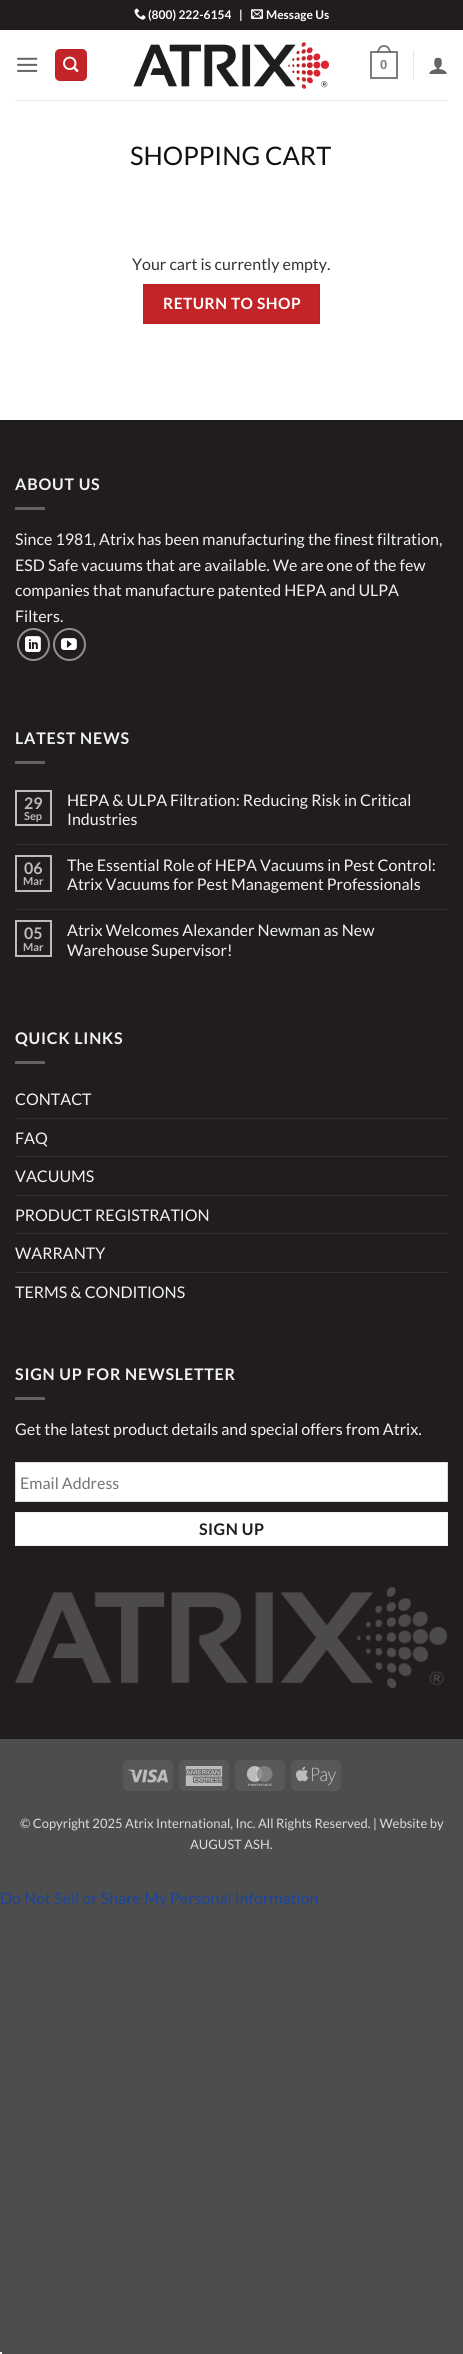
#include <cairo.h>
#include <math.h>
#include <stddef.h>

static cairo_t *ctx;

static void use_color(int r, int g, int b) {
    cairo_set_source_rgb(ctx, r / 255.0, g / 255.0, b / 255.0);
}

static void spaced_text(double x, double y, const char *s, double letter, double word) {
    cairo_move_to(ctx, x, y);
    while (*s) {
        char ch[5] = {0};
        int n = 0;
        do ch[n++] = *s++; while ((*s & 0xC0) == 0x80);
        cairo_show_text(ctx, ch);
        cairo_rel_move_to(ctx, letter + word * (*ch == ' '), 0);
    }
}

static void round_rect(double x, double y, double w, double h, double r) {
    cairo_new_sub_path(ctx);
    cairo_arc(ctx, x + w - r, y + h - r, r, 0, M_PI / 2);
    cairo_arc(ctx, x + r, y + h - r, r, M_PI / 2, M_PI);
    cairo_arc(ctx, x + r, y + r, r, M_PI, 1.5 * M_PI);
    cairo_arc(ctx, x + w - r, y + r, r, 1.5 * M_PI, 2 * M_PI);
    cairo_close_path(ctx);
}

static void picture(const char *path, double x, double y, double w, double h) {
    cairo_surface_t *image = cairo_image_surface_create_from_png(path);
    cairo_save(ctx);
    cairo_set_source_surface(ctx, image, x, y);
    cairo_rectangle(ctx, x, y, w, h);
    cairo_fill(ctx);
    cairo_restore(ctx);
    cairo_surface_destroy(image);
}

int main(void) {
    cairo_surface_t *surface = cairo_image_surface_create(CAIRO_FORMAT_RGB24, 463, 2354);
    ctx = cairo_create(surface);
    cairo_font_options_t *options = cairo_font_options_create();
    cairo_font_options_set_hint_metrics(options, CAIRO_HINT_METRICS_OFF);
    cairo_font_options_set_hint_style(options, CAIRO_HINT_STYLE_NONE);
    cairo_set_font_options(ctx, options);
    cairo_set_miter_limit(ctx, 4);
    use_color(77, 77, 77);
    cairo_paint(ctx);
    use_color(255, 255, 255);
    cairo_rectangle(ctx, 0, 30, 463, 390);
    cairo_fill(ctx);
    use_color(33, 29, 29);
    cairo_rectangle(ctx, 0, 0, 463, 30);
    cairo_fill(ctx);
    picture("img1.png", 134, 8, 12, 12);
    cairo_select_font_face(ctx, "Lato", CAIRO_FONT_SLANT_NORMAL, CAIRO_FONT_WEIGHT_BOLD);
    cairo_set_font_size(ctx, 12);
    use_color(255, 255, 255);
    cairo_move_to(ctx, 148, 19);
    cairo_show_text(ctx, "(800) 222-6154");
    cairo_move_to(ctx, 239, 19);
    cairo_show_text(ctx, "|");
    picture("img2.png", 251, 9, 12, 10);
    cairo_move_to(ctx, 266, 19);
    cairo_show_text(ctx, "Message Us");
    picture("img3.png", 17, 57, 21, 15);
    use_color(195, 36, 39);
    round_rect(55, 49, 32, 32, 5);
    cairo_fill(ctx);
    cairo_rectangle(ctx, 55.5, 49.5, 31, 31);
    cairo_set_source_rgba(ctx, 0, 0, 0, 0.05);
    cairo_set_line_width(ctx, 1);
    cairo_stroke(ctx);
    picture("img4.png", 63, 56, 16, 16);
    picture("img5.png", 133, 42, 196, 47);
    cairo_rectangle(ctx, 371, 52, 26, 26);
    use_color(125, 125, 125);
    cairo_set_line_width(ctx, 2);
    cairo_stroke(ctx);
    cairo_set_source_rgba(ctx, 0.4, 0.4, 0.4, 0.85);
    cairo_set_fill_rule(ctx, CAIRO_FILL_RULE_EVEN_ODD);
    cairo_new_path(ctx);
    cairo_move_to(ctx, 384, 45);
    cairo_curve_to(ctx, 388.5, 45, 391, 49, 391, 53);
    cairo_line_to(ctx, 377, 53);
    cairo_curve_to(ctx, 377, 49, 379.5, 45, 384, 45);
    cairo_close_path(ctx);
    cairo_move_to(ctx, 384, 47);
    cairo_curve_to(ctx, 387.5, 47, 389, 50, 389, 53);
    cairo_line_to(ctx, 379, 53);
    cairo_curve_to(ctx, 379, 50, 380.5, 47, 384, 47);
    cairo_close_path(ctx);
    cairo_fill(ctx);
    cairo_select_font_face(ctx, "Liberation Sans", CAIRO_FONT_SLANT_NORMAL, CAIRO_FONT_WEIGHT_BOLD);
    cairo_set_font_size(ctx, 13);
    use_color(125, 125, 125);
    cairo_move_to(ctx, 380, 69);
    cairo_show_text(ctx, "0");
    use_color(230, 230, 230);
    cairo_rectangle(ctx, 413, 50, 1, 30);
    cairo_fill(ctx);
    picture("img6.png", 429, 57, 18, 17);
    use_color(235, 235, 235);
    cairo_rectangle(ctx, 15, 100, 433, 1);
    cairo_fill(ctx);
    cairo_select_font_face(ctx, "Lato", CAIRO_FONT_SLANT_NORMAL, CAIRO_FONT_WEIGHT_NORMAL);
    cairo_set_font_size(ctx, 25.5);
    use_color(17, 17, 17);
    cairo_move_to(ctx, 130, 165);
    cairo_show_text(ctx, "SHOPPING CART");
    cairo_set_font_size(ctx, 16);
    use_color(51, 51, 51);
    cairo_move_to(ctx, 132, 270);
    cairo_show_text(ctx, "Your cart is currently empty.");
    use_color(195, 36, 39);
    cairo_rectangle(ctx, 143.5, 284.5, 176, 39);
    cairo_fill_preserve(ctx);
    use_color(185, 34, 37);
    cairo_set_line_width(ctx, 1);
    cairo_stroke(ctx);
    cairo_select_font_face(ctx, "Lato", CAIRO_FONT_SLANT_NORMAL, CAIRO_FONT_WEIGHT_BOLD);
    cairo_set_font_size(ctx, 15.5);
    use_color(255, 255, 255);
    spaced_text(163, 309, "RETURN TO SHOP", 0.5, 0);
    use_color(33, 29, 29);
    cairo_rectangle(ctx, 0, 421, 463, 1318);
    cairo_fill(ctx);
    use_color(31, 28, 28);
    cairo_rectangle(ctx, 0, 420, 463, 1);
    cairo_fill(ctx);
    cairo_set_font_size(ctx, 16);
    use_color(241, 241, 241);
    spaced_text(15, 490, "ABOUT US", 0.8, 0);
    use_color(100, 97, 97);
    cairo_rectangle(ctx, 15, 507, 30, 3);
    cairo_fill(ctx);
    cairo_select_font_face(ctx, "Lato", CAIRO_FONT_SLANT_NORMAL, CAIRO_FONT_WEIGHT_NORMAL);
    use_color(241, 241, 241);
    cairo_move_to(ctx, 15, 545);
    cairo_show_text(ctx, "Since 1981, Atrix has been manufacturing the finest filtration,");
    cairo_move_to(ctx, 15, 571);
    cairo_show_text(ctx, "ESD Safe vacuums that are available. We are one of the few");
    cairo_move_to(ctx, 15, 596);
    cairo_show_text(ctx, "companies that manufacture patented HEPA and ULPA");
    cairo_move_to(ctx, 15, 622);
    cairo_show_text(ctx, "Filters.");
    cairo_new_path(ctx);
    cairo_arc(ctx, 33.5, 644.5, 15.5, 0, 2 * M_PI);
    use_color(144, 142, 142);
    cairo_set_line_width(ctx, 2);
    cairo_stroke(ctx);
    picture("img7.png", 25, 636, 16, 16);
    cairo_arc(ctx, 69.5, 644.5, 15.5, 0, 2 * M_PI);
    cairo_stroke(ctx);
    picture("img8.png", 61, 638, 16, 12);
    cairo_select_font_face(ctx, "Lato", CAIRO_FONT_SLANT_NORMAL, CAIRO_FONT_WEIGHT_BOLD);
    use_color(241, 241, 241);
    spaced_text(15, 744, "LATEST NEWS", 0.8, 0);
    use_color(100, 97, 97);
    cairo_rectangle(ctx, 15, 761, 30, 3);
    cairo_fill(ctx);
    cairo_rectangle(ctx, 16, 791, 35, 34);
    use_color(188, 187, 187);
    cairo_stroke(ctx);
    cairo_move_to(ctx, 24, 809);
    cairo_show_text(ctx, "29");
    cairo_set_font_size(ctx, 11);
    cairo_move_to(ctx, 24, 820);
    cairo_show_text(ctx, "Sep");
    cairo_select_font_face(ctx, "Lato", CAIRO_FONT_SLANT_NORMAL, CAIRO_FONT_WEIGHT_NORMAL);
    cairo_set_font_size(ctx, 16);
    use_color(241, 241, 241);
    cairo_move_to(ctx, 67, 806);
    cairo_show_text(ctx, "HEPA & ULPA Filtration: Reducing Risk in Critical");
    cairo_move_to(ctx, 67, 825);
    cairo_show_text(ctx, "Industries");
    use_color(51, 47, 47);
    cairo_rectangle(ctx, 15, 844, 433, 1);
    cairo_fill(ctx);
    cairo_rectangle(ctx, 16, 856, 35, 35);
    use_color(188, 187, 187);
    cairo_stroke(ctx);
    cairo_select_font_face(ctx, "Lato", CAIRO_FONT_SLANT_NORMAL, CAIRO_FONT_WEIGHT_BOLD);
    cairo_move_to(ctx, 24, 874);
    cairo_show_text(ctx, "06");
    cairo_set_font_size(ctx, 11);
    cairo_move_to(ctx, 23, 885);
    cairo_show_text(ctx, "Mar");
    cairo_select_font_face(ctx, "Lato", CAIRO_FONT_SLANT_NORMAL, CAIRO_FONT_WEIGHT_NORMAL);
    cairo_set_font_size(ctx, 16);
    use_color(241, 241, 241);
    cairo_move_to(ctx, 67, 871);
    cairo_show_text(ctx, "The Essential Role of HEPA Vacuums in Pest Control:");
    cairo_move_to(ctx, 67, 890);
    cairo_show_text(ctx, "Atrix Vacuums for Pest Management Professionals");
    use_color(51, 47, 47);
    cairo_rectangle(ctx, 15, 909, 433, 1);
    cairo_fill(ctx);
    cairo_rectangle(ctx, 16, 921, 35, 35);
    use_color(188, 187, 187);
    cairo_stroke(ctx);
    cairo_select_font_face(ctx, "Lato", CAIRO_FONT_SLANT_NORMAL, CAIRO_FONT_WEIGHT_BOLD);
    cairo_move_to(ctx, 24, 939);
    cairo_show_text(ctx, "05");
    cairo_set_font_size(ctx, 11);
    cairo_move_to(ctx, 23, 951);
    cairo_show_text(ctx, "Mar");
    cairo_select_font_face(ctx, "Lato", CAIRO_FONT_SLANT_NORMAL, CAIRO_FONT_WEIGHT_NORMAL);
    cairo_set_font_size(ctx, 16);
    use_color(241, 241, 241);
    cairo_move_to(ctx, 67, 936);
    cairo_show_text(ctx, "Atrix Welcomes Alexander Newman as New");
    cairo_move_to(ctx, 67, 956);
    cairo_show_text(ctx, "Warehouse Supervisor!");
    cairo_select_font_face(ctx, "Lato", CAIRO_FONT_SLANT_NORMAL, CAIRO_FONT_WEIGHT_BOLD);
    spaced_text(15, 1044, "QUICK LINKS", 0.8, 0);
    use_color(100, 97, 97);
    cairo_rectangle(ctx, 15, 1061, 30, 3);
    cairo_fill(ctx);
    cairo_select_font_face(ctx, "Lato", CAIRO_FONT_SLANT_NORMAL, CAIRO_FONT_WEIGHT_NORMAL);
    use_color(241, 241, 241);
    cairo_move_to(ctx, 15, 1105);
    cairo_show_text(ctx, "CONTACT");
    use_color(51, 47, 47);
    cairo_rectangle(ctx, 15, 1118, 433, 1);
    cairo_fill(ctx);
    use_color(241, 241, 241);
    cairo_move_to(ctx, 15, 1144);
    cairo_show_text(ctx, "FAQ");
    use_color(51, 47, 47);
    cairo_rectangle(ctx, 15, 1156, 433, 1);
    cairo_fill(ctx);
    use_color(241, 241, 241);
    cairo_move_to(ctx, 15, 1182);
    cairo_show_text(ctx, "VACUUMS");
    use_color(51, 47, 47);
    cairo_rectangle(ctx, 15, 1195, 433, 1);
    cairo_fill(ctx);
    use_color(241, 241, 241);
    cairo_move_to(ctx, 15, 1221);
    cairo_show_text(ctx, "PRODUCT REGISTRATION");
    use_color(51, 47, 47);
    cairo_rectangle(ctx, 15, 1233, 433, 1);
    cairo_fill(ctx);
    use_color(241, 241, 241);
    cairo_move_to(ctx, 15, 1259);
    cairo_show_text(ctx, "WARRANTY");
    use_color(51, 47, 47);
    cairo_rectangle(ctx, 15, 1272, 433, 1);
    cairo_fill(ctx);
    use_color(241, 241, 241);
    cairo_move_to(ctx, 15, 1298);
    cairo_show_text(ctx, "TERMS & CONDITIONS");
    cairo_select_font_face(ctx, "Lato", CAIRO_FONT_SLANT_NORMAL, CAIRO_FONT_WEIGHT_BOLD);
    spaced_text(15, 1380, "SIGN UP FOR NEWSLETTER", 0.8, 0);
    use_color(100, 97, 97);
    cairo_rectangle(ctx, 15, 1397, 30, 3);
    cairo_fill(ctx);
    cairo_select_font_face(ctx, "Lato", CAIRO_FONT_SLANT_NORMAL, CAIRO_FONT_WEIGHT_NORMAL);
    use_color(241, 241, 241);
    cairo_move_to(ctx, 15, 1435);
    cairo_show_text(ctx, "Get the latest product details and special offers from Atrix.");
    use_color(255, 255, 255);
    cairo_rectangle(ctx, 15.5, 1462.5, 432, 39);
    cairo_fill_preserve(ctx);
    use_color(221, 221, 221);
    cairo_set_line_width(ctx, 1);
    cairo_stroke(ctx);
    use_color(117, 117, 117);
    cairo_move_to(ctx, 20, 1489);
    cairo_show_text(ctx, "Email Address");
    use_color(255, 255, 255);
    cairo_rectangle(ctx, 15.5, 1512.5, 432, 33);
    cairo_fill_preserve(ctx);
    use_color(242, 242, 242);
    cairo_stroke(ctx);
    cairo_select_font_face(ctx, "Lato", CAIRO_FONT_SLANT_NORMAL, CAIRO_FONT_WEIGHT_BOLD);
    use_color(33, 29, 29);
    spaced_text(199, 1535, "SIGN UP", 0.5, 0);
    picture("img9.png", 15, 1587, 432, 101);
    use_color(88, 88, 88);
    round_rect(123, 1760, 50, 31, 5);
    cairo_fill(ctx);
    picture("img10.png", 128, 1769, 40, 14);
    round_rect(179, 1760, 50, 31, 5);
    cairo_fill(ctx);
    picture("img11.png", 185, 1766, 38, 20);
    round_rect(235, 1760, 50, 31, 5);
    cairo_fill(ctx);
    picture("img12.png", 246, 1766, 27, 20);
    round_rect(291, 1760, 50, 31, 5);
    cairo_fill(ctx);
    picture("img13.png", 296, 1766, 40, 20);
    cairo_select_font_face(ctx, "Lato", CAIRO_FONT_SLANT_NORMAL, CAIRO_FONT_WEIGHT_NORMAL);
    cairo_set_font_size(ctx, 12.95);
    use_color(219, 219, 219);
    cairo_move_to(ctx, 20, 1828);
    cairo_show_text(ctx, "© Copyright 2025 Atrix International, Inc. All Rights Reserved. | Website by");
    cairo_move_to(ctx, 190, 1849);
    cairo_show_text(ctx, "AUGUST ASH.");
    cairo_set_font_size(ctx, 16);
    use_color(28, 68, 156);
    cairo_move_to(ctx, 0, 1904);
    cairo_show_text(ctx, "Do Not Sell or Share My Personal Information");
    use_color(245, 245, 245);
    cairo_rectangle(ctx, 0, 2352, 2, 2);
    cairo_fill(ctx);
    cairo_surface_write_to_png(surface, "result.png");
    cairo_font_options_destroy(options);
    cairo_destroy(ctx);
    cairo_surface_destroy(surface);
    return 0;
}
